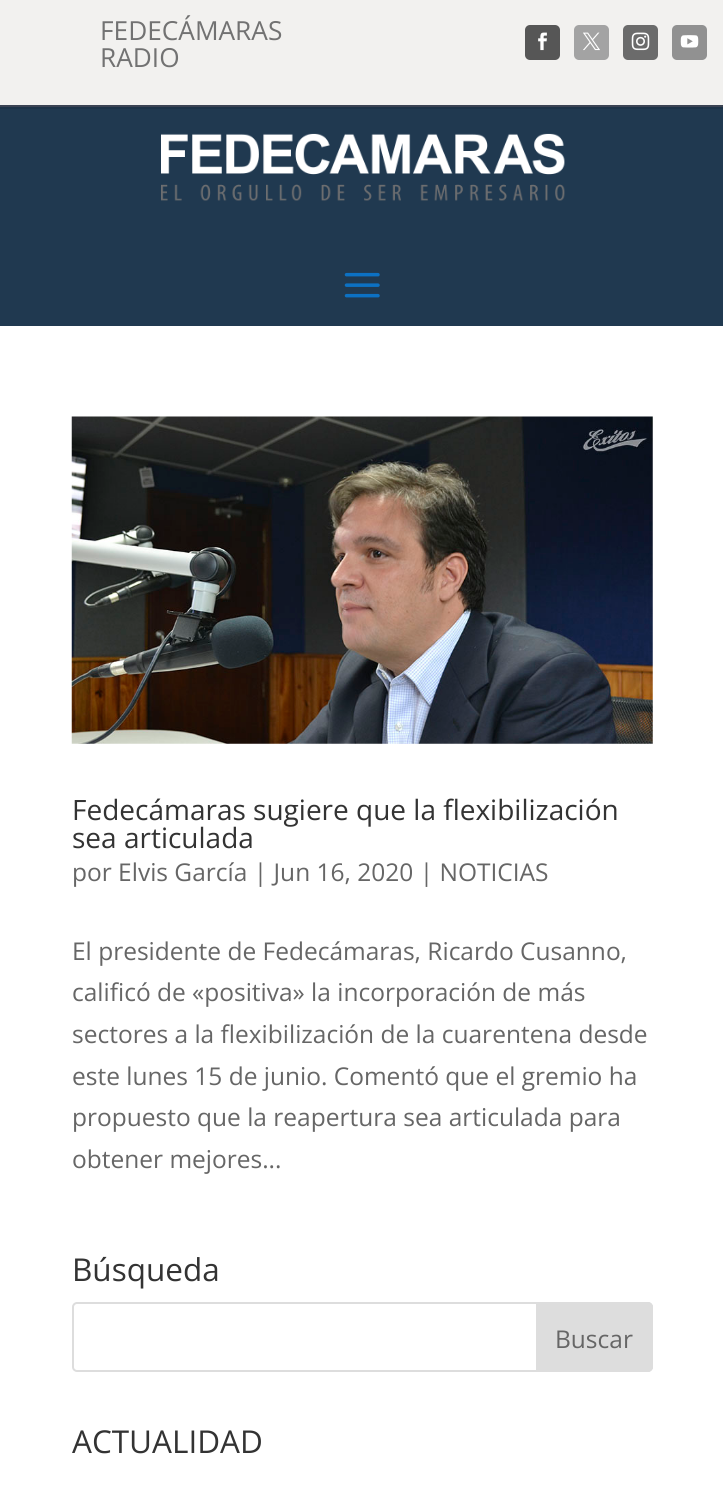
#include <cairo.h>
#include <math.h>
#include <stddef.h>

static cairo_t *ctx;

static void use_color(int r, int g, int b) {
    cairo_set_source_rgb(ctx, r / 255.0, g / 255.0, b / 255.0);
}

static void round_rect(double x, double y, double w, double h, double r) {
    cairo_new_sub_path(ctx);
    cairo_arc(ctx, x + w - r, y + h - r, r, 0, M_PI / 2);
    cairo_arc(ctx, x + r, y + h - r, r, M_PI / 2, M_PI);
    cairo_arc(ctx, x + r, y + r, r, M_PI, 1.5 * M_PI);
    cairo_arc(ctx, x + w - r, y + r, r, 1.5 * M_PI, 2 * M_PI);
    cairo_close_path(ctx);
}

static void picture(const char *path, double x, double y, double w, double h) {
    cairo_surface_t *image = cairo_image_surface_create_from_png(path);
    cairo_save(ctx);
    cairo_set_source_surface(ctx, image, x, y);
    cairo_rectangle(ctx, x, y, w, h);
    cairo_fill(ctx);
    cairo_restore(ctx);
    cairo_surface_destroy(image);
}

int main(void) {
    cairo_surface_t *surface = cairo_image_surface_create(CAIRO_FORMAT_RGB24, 723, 1502);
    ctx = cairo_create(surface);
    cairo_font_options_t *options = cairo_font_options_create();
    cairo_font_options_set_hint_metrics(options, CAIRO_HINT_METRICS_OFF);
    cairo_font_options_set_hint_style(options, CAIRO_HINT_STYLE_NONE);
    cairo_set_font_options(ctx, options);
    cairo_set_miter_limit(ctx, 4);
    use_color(242, 241, 239);
    cairo_paint(ctx);
    use_color(29, 51, 72);
    cairo_new_path(ctx);
    cairo_move_to(ctx, 0, 107);
    cairo_line_to(ctx, 0, 109);
    cairo_line_to(ctx, 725, 109);
    cairo_line_to(ctx, 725, 2);
    cairo_line_to(ctx, 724, 2);
    cairo_line_to(ctx, 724, 107);
    cairo_close_path(ctx);
    cairo_fill(ctx);
    use_color(59, 67, 83);
    cairo_rectangle(ctx, 0, 105, 723, 2);
    cairo_fill(ctx);
    cairo_select_font_face(ctx, "Open Sans", CAIRO_FONT_SLANT_NORMAL, CAIRO_FONT_WEIGHT_NORMAL);
    cairo_set_font_size(ctx, 26.25);
    use_color(114, 114, 114);
    cairo_move_to(ctx, 100, 40);
    cairo_show_text(ctx, "FEDECÁMARAS");
    cairo_move_to(ctx, 100, 67);
    cairo_show_text(ctx, "RADIO");
    use_color(86, 86, 86);
    round_rect(525, 25, 35, 35, 5);
    cairo_fill(ctx);
    picture("img1.png", 538, 32, 9, 19);
    use_color(163, 163, 163);
    round_rect(574, 25, 35, 35, 5);
    cairo_fill(ctx);
    picture("img2.png", 583, 32, 17, 19);
    use_color(107, 107, 107);
    round_rect(623, 25, 35, 35, 5);
    cairo_fill(ctx);
    picture("img3.png", 631, 32, 19, 19);
    use_color(145, 145, 145);
    round_rect(672, 25, 35, 35, 5);
    cairo_fill(ctx);
    picture("img4.png", 680, 35, 19, 13);
    use_color(32, 57, 80);
    cairo_rectangle(ctx, 0, 109, 723, 217);
    cairo_fill(ctx);
    picture("img5.png", 161, 133, 404, 68);
    picture("img6.png", 344, 272, 36, 26);
    use_color(255, 255, 255);
    cairo_rectangle(ctx, 0, 326, 723, 1176);
    cairo_fill(ctx);
    picture("img7.png", 71, 416, 582, 328);
    cairo_set_font_size(ctx, 28);
    use_color(51, 51, 51);
    cairo_move_to(ctx, 72, 820);
    cairo_show_text(ctx, "Fedecámaras sugiere que la flexibilización");
    cairo_move_to(ctx, 72, 848);
    cairo_show_text(ctx, "sea articulada");
    cairo_set_font_size(ctx, 24.5);
    use_color(102, 102, 102);
    cairo_move_to(ctx, 72, 881);
    cairo_show_text(ctx, "por Elvis García | Jun 16, 2020 | NOTICIAS");
    cairo_move_to(ctx, 72, 960);
    cairo_show_text(ctx, "El presidente de Fedecámaras, Ricardo Cusanno,");
    cairo_move_to(ctx, 72, 1001);
    cairo_show_text(ctx, "calificó de «positiva» la incorporación de más");
    cairo_move_to(ctx, 72, 1043);
    cairo_show_text(ctx, "sectores a la flexibilización de la cuarentena desde");
    cairo_move_to(ctx, 72, 1085);
    cairo_show_text(ctx, "este lunes 15 de junio. Comentó que el gremio ha");
    cairo_move_to(ctx, 72, 1126);
    cairo_show_text(ctx, "propuesto que la reapertura sea articulada para");
    cairo_move_to(ctx, 72, 1168);
    cairo_show_text(ctx, "obtener mejores...");
    cairo_set_font_size(ctx, 31.5);
    use_color(51, 51, 51);
    cairo_move_to(ctx, 72, 1281);
    cairo_show_text(ctx, "Búsqueda");
    round_rect(73, 1303, 579, 68, 4);
    use_color(221, 221, 221);
    cairo_stroke(ctx);
    cairo_new_path(ctx);
    cairo_move_to(ctx, 537, 1303);
    cairo_line_to(ctx, 648, 1303);
    cairo_curve_to(ctx, 650, 1303, 652, 1305, 652, 1307);
    cairo_line_to(ctx, 652, 1367);
    cairo_curve_to(ctx, 652, 1369, 650, 1371, 648, 1371);
    cairo_line_to(ctx, 537, 1371);
    cairo_close_path(ctx);
    cairo_fill_preserve(ctx);
    cairo_stroke(ctx);
    cairo_set_font_size(ctx, 24.5);
    use_color(102, 102, 102);
    cairo_move_to(ctx, 555, 1348);
    cairo_show_text(ctx, "Buscar");
    cairo_set_font_size(ctx, 31.5);
    use_color(51, 51, 51);
    cairo_move_to(ctx, 72, 1453);
    cairo_show_text(ctx, "ACTUALIDAD");
    cairo_surface_write_to_png(surface, "result.png");
    cairo_font_options_destroy(options);
    cairo_destroy(ctx);
    cairo_surface_destroy(surface);
    return 0;
}
